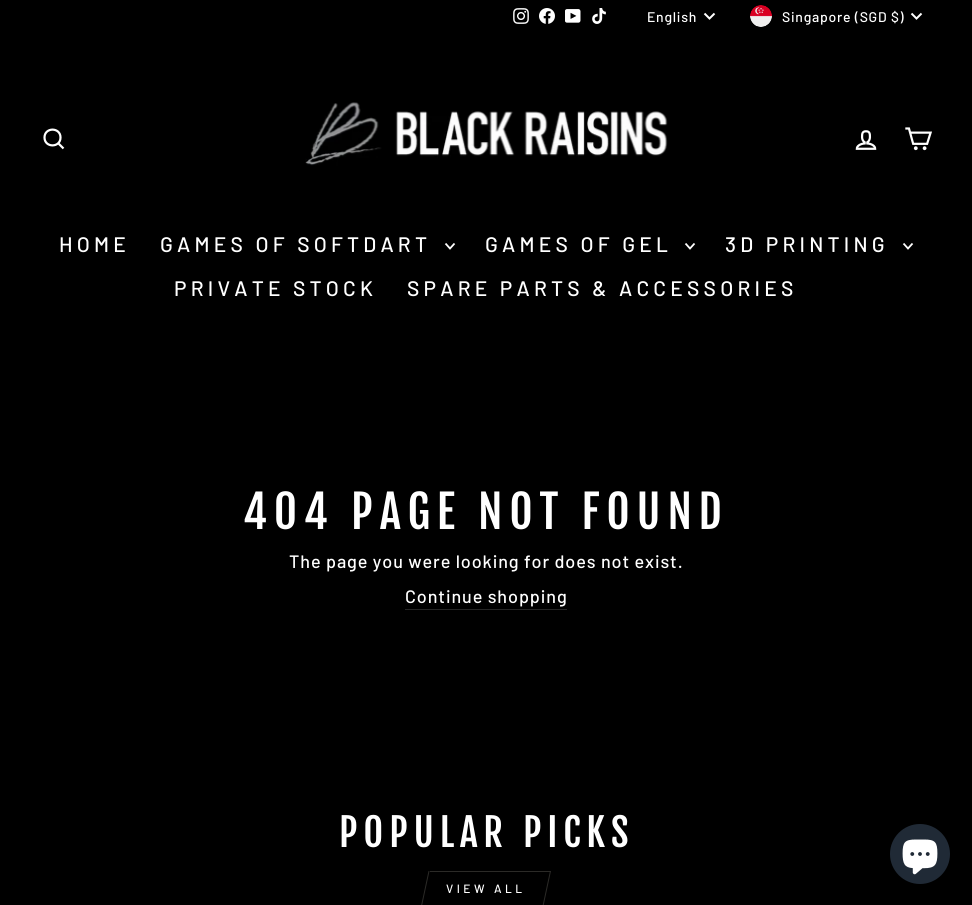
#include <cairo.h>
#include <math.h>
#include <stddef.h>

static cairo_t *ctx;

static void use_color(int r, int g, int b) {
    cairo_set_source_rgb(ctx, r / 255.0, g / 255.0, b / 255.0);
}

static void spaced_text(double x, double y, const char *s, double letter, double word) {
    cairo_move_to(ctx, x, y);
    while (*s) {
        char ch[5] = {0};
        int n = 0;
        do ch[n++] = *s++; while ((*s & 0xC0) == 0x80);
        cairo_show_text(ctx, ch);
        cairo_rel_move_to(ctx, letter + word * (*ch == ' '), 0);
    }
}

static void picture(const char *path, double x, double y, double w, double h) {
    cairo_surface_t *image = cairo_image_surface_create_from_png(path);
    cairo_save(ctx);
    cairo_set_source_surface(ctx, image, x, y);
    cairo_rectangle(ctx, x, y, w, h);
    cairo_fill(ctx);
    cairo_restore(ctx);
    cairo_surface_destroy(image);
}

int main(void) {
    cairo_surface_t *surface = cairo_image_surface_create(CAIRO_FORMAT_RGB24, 972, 905);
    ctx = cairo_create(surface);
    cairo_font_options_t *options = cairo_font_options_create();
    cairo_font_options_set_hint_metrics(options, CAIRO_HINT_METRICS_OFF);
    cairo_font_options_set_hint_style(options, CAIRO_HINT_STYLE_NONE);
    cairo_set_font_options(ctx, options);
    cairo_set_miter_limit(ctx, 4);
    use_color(0, 0, 0);
    cairo_paint(ctx);
    picture("img1.png", 513, 8, 16, 16);
    picture("img2.png", 539, 8, 16, 16);
    picture("img3.png", 565, 9, 16, 14);
    picture("img4.png", 592, 8, 14, 16);
    cairo_select_font_face(ctx, "Barlow Medium", CAIRO_FONT_SLANT_NORMAL, CAIRO_FONT_WEIGHT_NORMAL);
    cairo_set_font_size(ctx, 14);
    use_color(255, 255, 255);
    spaced_text(647, 22, "English", 0.75, 0);
    cairo_new_path(ctx);
    cairo_move_to(ctx, 704.5, 13.5);
    cairo_line_to(ctx, 709.5, 18.5);
    cairo_line_to(ctx, 714.5, 13.5);
    cairo_stroke(ctx);
    picture("img5.png", 750, 5, 22, 22);
    spaced_text(782, 22, "Singapore (SGD $)", 0.75, 0);
    cairo_new_path(ctx);
    cairo_move_to(ctx, 911.5, 13.5);
    cairo_line_to(ctx, 916.5, 18.5);
    cairo_line_to(ctx, 921.5, 13.5);
    cairo_stroke(ctx);
    cairo_new_path(ctx);
    cairo_move_to(ctx, 60.5, 137.5);
    cairo_curve_to(ctx, 60.5, 148, 44.5, 148, 44.5, 137.5);
    cairo_curve_to(ctx, 44.5, 127, 60.5, 127, 60.5, 137.5);
    cairo_close_path(ctx);
    cairo_move_to(ctx, 63.5, 148.5);
    cairo_line_to(ctx, 58.5, 143.5);
    cairo_set_line_width(ctx, 2.2);
    cairo_stroke(ctx);
    picture("img6.png", 305, 102, 363, 64);
    picture("img7.png", 855, 130, 22, 20);
    picture("img8.png", 905, 127, 27, 24);
    cairo_set_font_size(ctx, 21);
    spaced_text(59, 252, "HOME", 4.2, 0);
    spaced_text(160, 252, "GAMES OF SOFTDART", 4.2, 0);
    cairo_new_path(ctx);
    cairo_move_to(ctx, 445.5, 243.5);
    cairo_line_to(ctx, 450, 248.5);
    cairo_line_to(ctx, 454.5, 243.5);
    cairo_set_line_width(ctx, 1.8);
    cairo_stroke(ctx);
    spaced_text(485, 252, "GAMES OF GEL", 4.2, 0);
    cairo_new_path(ctx);
    cairo_move_to(ctx, 685.5, 243.5);
    cairo_line_to(ctx, 690, 248.5);
    cairo_line_to(ctx, 694.5, 243.5);
    cairo_stroke(ctx);
    spaced_text(725, 252, "3D PRINTING", 4.2, 0);
    cairo_new_path(ctx);
    cairo_move_to(ctx, 903.5, 243.5);
    cairo_line_to(ctx, 908, 248.5);
    cairo_line_to(ctx, 912.5, 243.5);
    cairo_stroke(ctx);
    spaced_text(174, 296, "PRIVATE STOCK", 4.2, 0);
    spaced_text(407, 296, "SPARE PARTS & ACCESSORIES", 4.2, 0);
    cairo_select_font_face(ctx, "Fjalla One", CAIRO_FONT_SLANT_NORMAL, CAIRO_FONT_WEIGHT_NORMAL);
    cairo_set_font_size(ctx, 45);
    spaced_text(243, 529, "404 PAGE NOT FOUND", 6.75, 0);
    cairo_select_font_face(ctx, "Barlow Medium", CAIRO_FONT_SLANT_NORMAL, CAIRO_FONT_WEIGHT_NORMAL);
    cairo_set_font_size(ctx, 18);
    spaced_text(289, 568, "The page you were looking for does not exist.", 0.9, 0);
    use_color(38, 38, 38);
    cairo_rectangle(ctx, 405, 609, 162, 1);
    cairo_fill(ctx);
    use_color(255, 255, 255);
    spaced_text(405, 603, "Continue shopping", 0.9, 0);
    cairo_select_font_face(ctx, "Fjalla One", CAIRO_FONT_SLANT_NORMAL, CAIRO_FONT_WEIGHT_NORMAL);
    cairo_set_font_size(ctx, 38.25);
    spaced_text(339, 847, "POPULAR PICKS", 5.75, 0);
    use_color(43, 42, 39);
    cairo_rectangle(ctx, 430, 871, 101, 1);
    cairo_fill(ctx);
    cairo_new_path(ctx);
    cairo_move_to(ctx, 428.5, 871);
    cairo_line_to(ctx, 429.5, 871);
    cairo_line_to(ctx, 422, 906);
    cairo_line_to(ctx, 421, 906);
    cairo_close_path(ctx);
    cairo_fill(ctx);
    cairo_select_font_face(ctx, "Barlow Medium", CAIRO_FONT_SLANT_NORMAL, CAIRO_FONT_WEIGHT_NORMAL);
    cairo_set_font_size(ctx, 12);
    use_color(255, 255, 255);
    spaced_text(446, 893, "VIEW ALL", 3.5, 0);
    use_color(43, 42, 39);
    cairo_new_path(ctx);
    cairo_move_to(ctx, 531, 871);
    cairo_line_to(ctx, 551, 871);
    cairo_line_to(ctx, 550.5, 872);
    cairo_line_to(ctx, 530.5, 872);
    cairo_close_path(ctx);
    cairo_fill(ctx);
    cairo_new_path(ctx);
    cairo_move_to(ctx, 550, 871);
    cairo_line_to(ctx, 551, 871);
    cairo_line_to(ctx, 543.5, 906);
    cairo_line_to(ctx, 542.5, 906);
    cairo_close_path(ctx);
    cairo_fill(ctx);
    use_color(32, 42, 54);
    cairo_arc(ctx, 920, 854, 30, 0, 2 * M_PI);
    cairo_fill(ctx);
    picture("img9.png", 902, 839, 36, 36);
    cairo_surface_write_to_png(surface, "result.png");
    cairo_font_options_destroy(options);
    cairo_destroy(ctx);
    cairo_surface_destroy(surface);
    return 0;
}
